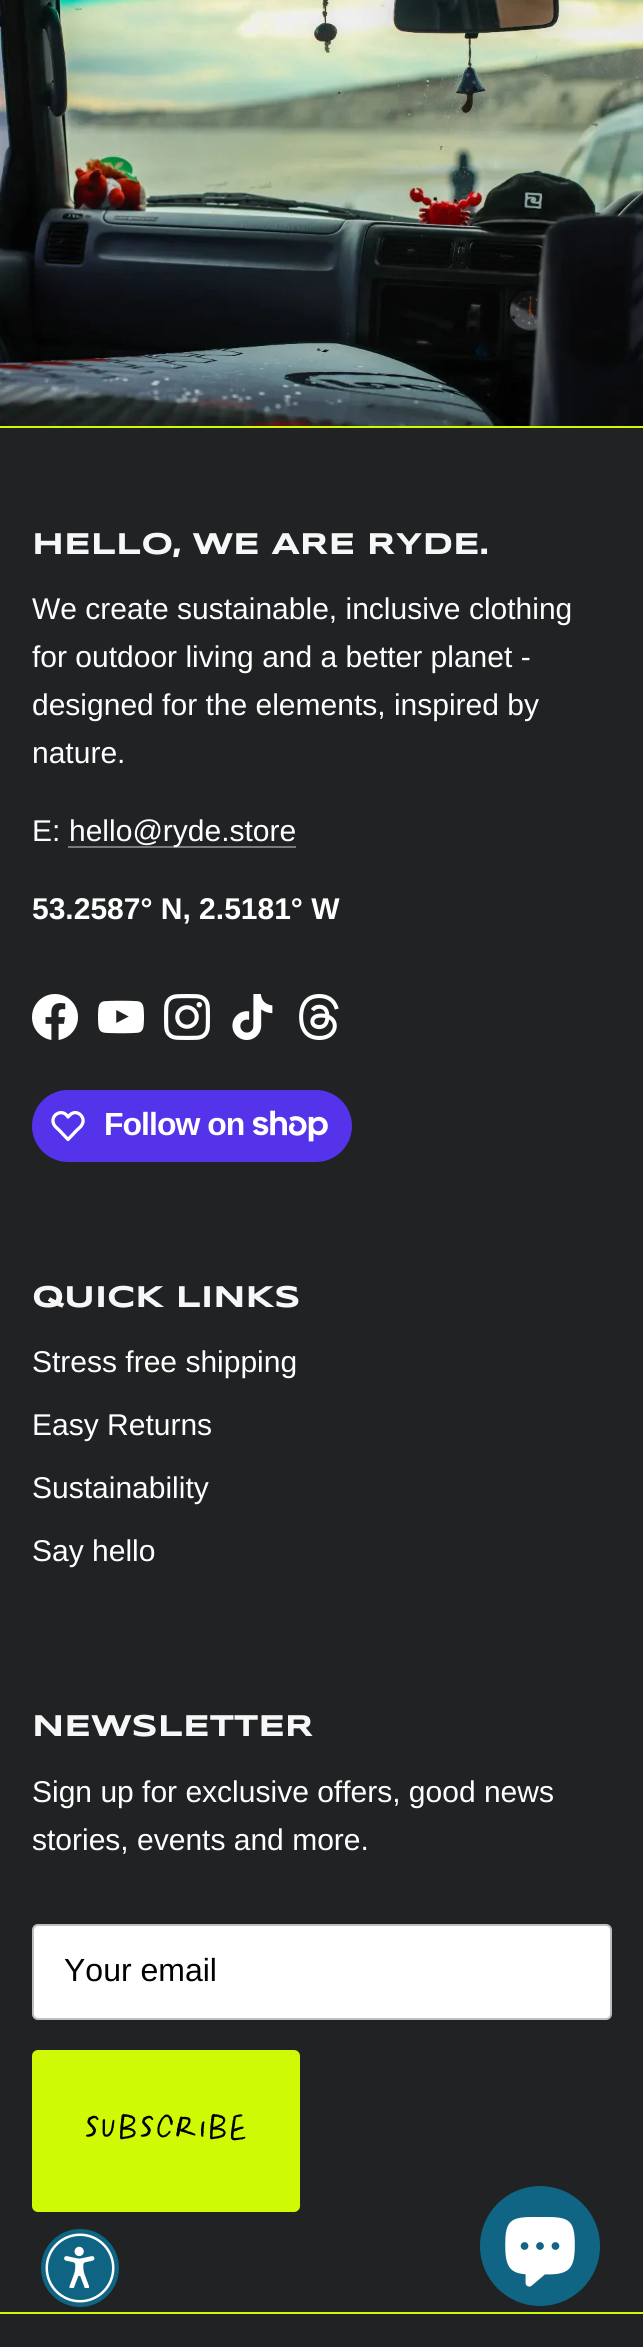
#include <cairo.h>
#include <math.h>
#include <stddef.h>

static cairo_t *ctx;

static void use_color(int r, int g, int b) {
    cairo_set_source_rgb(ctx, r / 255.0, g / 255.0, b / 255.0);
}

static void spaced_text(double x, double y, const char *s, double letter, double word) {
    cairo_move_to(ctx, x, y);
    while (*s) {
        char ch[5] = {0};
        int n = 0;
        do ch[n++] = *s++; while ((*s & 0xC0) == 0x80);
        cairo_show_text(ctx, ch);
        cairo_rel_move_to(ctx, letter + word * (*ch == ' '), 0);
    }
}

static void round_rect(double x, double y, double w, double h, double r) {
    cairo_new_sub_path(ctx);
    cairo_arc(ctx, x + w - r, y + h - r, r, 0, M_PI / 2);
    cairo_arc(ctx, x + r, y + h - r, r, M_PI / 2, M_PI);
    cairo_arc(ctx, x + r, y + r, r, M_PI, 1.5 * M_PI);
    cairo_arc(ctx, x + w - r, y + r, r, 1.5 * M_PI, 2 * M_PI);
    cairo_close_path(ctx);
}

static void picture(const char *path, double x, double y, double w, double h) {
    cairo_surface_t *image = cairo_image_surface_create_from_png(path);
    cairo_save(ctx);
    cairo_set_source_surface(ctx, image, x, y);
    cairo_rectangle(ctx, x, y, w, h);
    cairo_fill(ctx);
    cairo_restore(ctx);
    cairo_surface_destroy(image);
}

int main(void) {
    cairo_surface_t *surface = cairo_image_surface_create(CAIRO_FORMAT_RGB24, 643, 2347);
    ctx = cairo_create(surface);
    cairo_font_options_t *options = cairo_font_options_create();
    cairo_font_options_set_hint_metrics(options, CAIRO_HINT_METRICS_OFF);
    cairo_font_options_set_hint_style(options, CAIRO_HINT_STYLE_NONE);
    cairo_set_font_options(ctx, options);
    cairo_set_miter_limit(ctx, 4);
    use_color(32, 34, 35);
    cairo_paint(ctx);
    picture("img1.png", 0, 0, 643, 426);
    use_color(205, 250, 4);
    cairo_rectangle(ctx, 0, 426, 643, 2);
    cairo_fill(ctx);
    cairo_select_font_face(ctx, "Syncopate", CAIRO_FONT_SLANT_NORMAL, CAIRO_FONT_WEIGHT_BOLD);
    cairo_set_font_size(ctx, 31);
    use_color(247, 247, 248);
    cairo_move_to(ctx, 32, 554);
    cairo_show_text(ctx, "HELLO, WE ARE RYDE.");
    cairo_select_font_face(ctx, "Arimo", CAIRO_FONT_SLANT_NORMAL, CAIRO_FONT_WEIGHT_NORMAL);
    cairo_set_font_size(ctx, 30);
    use_color(255, 255, 255);
    cairo_move_to(ctx, 32, 619);
    cairo_show_text(ctx, "We create sustainable, inclusive clothing");
    cairo_move_to(ctx, 32, 667);
    cairo_show_text(ctx, "for outdoor living and a better planet -");
    cairo_move_to(ctx, 32, 715);
    cairo_show_text(ctx, "designed for the elements, inspired by");
    cairo_move_to(ctx, 32, 763);
    cairo_show_text(ctx, "nature.");
    cairo_move_to(ctx, 32, 841);
    cairo_show_text(ctx, "E:");
    use_color(121, 122, 123);
    cairo_rectangle(ctx, 68, 846, 228, 2);
    cairo_fill(ctx);
    use_color(255, 255, 255);
    cairo_move_to(ctx, 69, 841);
    cairo_show_text(ctx, "hello@ryde.store");
    cairo_select_font_face(ctx, "Arimo", CAIRO_FONT_SLANT_NORMAL, CAIRO_FONT_WEIGHT_BOLD);
    cairo_move_to(ctx, 32, 919);
    cairo_show_text(ctx, "53.2587° N, 2.5181° W");
    picture("img2.png", 32, 994, 46, 46);
    picture("img3.png", 98, 1000, 46, 34);
    picture("img4.png", 164, 994, 46, 46);
    picture("img5.png", 232, 994, 41, 46);
    picture("img6.png", 299, 994, 40, 46);
    use_color(84, 51, 235);
    round_rect(32, 1090, 320, 72, 36);
    cairo_fill(ctx);
    cairo_new_path(ctx);
    cairo_move_to(ctx, 66.5, 1115);
    cairo_line_to(ctx, 68, 1117);
    cairo_curve_to(ctx, 69.5, 1115.5, 71, 1113.5, 73, 1113);
    cairo_curve_to(ctx, 79, 1111, 85, 1117.5, 82.5, 1123.5);
    cairo_curve_to(ctx, 81.5, 1126.5, 78.5, 1128.5, 76.5, 1130.5);
    cairo_line_to(ctx, 68, 1139.5);
    cairo_line_to(ctx, 59.5, 1130.5);
    cairo_curve_to(ctx, 57.5, 1128.5, 54.5, 1126.5, 53.5, 1123.5);
    cairo_curve_to(ctx, 50.5, 1115.5, 60.5, 1109, 66.5, 1115);
    cairo_close_path(ctx);
    use_color(255, 255, 255);
    cairo_set_line_width(ctx, 3.3);
    cairo_set_line_join(ctx, CAIRO_LINE_JOIN_ROUND);
    cairo_stroke(ctx);
    cairo_select_font_face(ctx, "Liberation Sans", CAIRO_FONT_SLANT_NORMAL, CAIRO_FONT_WEIGHT_BOLD);
    cairo_set_font_size(ctx, 32);
    spaced_text(104, 1135, "Follow on", -1, 0);
    picture("img7.png", 253, 1110, 75, 32);
    cairo_select_font_face(ctx, "Syncopate", CAIRO_FONT_SLANT_NORMAL, CAIRO_FONT_WEIGHT_BOLD);
    cairo_set_font_size(ctx, 31);
    use_color(247, 247, 248);
    cairo_move_to(ctx, 32, 1307);
    cairo_show_text(ctx, "QUICK LINKS");
    cairo_select_font_face(ctx, "Arimo", CAIRO_FONT_SLANT_NORMAL, CAIRO_FONT_WEIGHT_NORMAL);
    cairo_set_font_size(ctx, 30);
    use_color(255, 255, 255);
    cairo_move_to(ctx, 32, 1372);
    cairo_show_text(ctx, "Stress free shipping");
    cairo_move_to(ctx, 32, 1435);
    cairo_show_text(ctx, "Easy Returns");
    cairo_move_to(ctx, 32, 1498);
    cairo_show_text(ctx, "Sustainability");
    cairo_move_to(ctx, 32, 1561);
    cairo_show_text(ctx, "Say hello");
    cairo_select_font_face(ctx, "Syncopate", CAIRO_FONT_SLANT_NORMAL, CAIRO_FONT_WEIGHT_BOLD);
    cairo_set_font_size(ctx, 31);
    use_color(247, 247, 248);
    cairo_move_to(ctx, 32, 1736);
    cairo_show_text(ctx, "NEWSLETTER");
    cairo_select_font_face(ctx, "Arimo", CAIRO_FONT_SLANT_NORMAL, CAIRO_FONT_WEIGHT_NORMAL);
    cairo_set_font_size(ctx, 30);
    use_color(255, 255, 255);
    cairo_move_to(ctx, 32, 1802);
    cairo_show_text(ctx, "Sign up for exclusive offers, good news");
    cairo_move_to(ctx, 32, 1850);
    cairo_show_text(ctx, "stories, events and more.");
    round_rect(33, 1925, 578, 94, 5);
    cairo_fill_preserve(ctx);
    use_color(191, 191, 191);
    cairo_set_line_width(ctx, 2);
    cairo_set_line_join(ctx, CAIRO_LINE_JOIN_MITER);
    cairo_stroke(ctx);
    cairo_set_font_size(ctx, 32);
    use_color(0, 0, 0);
    cairo_move_to(ctx, 64, 1981);
    cairo_show_text(ctx, "Your email");
    use_color(205, 250, 4);
    round_rect(33, 2051, 266, 160, 5);
    cairo_fill_preserve(ctx);
    cairo_stroke(ctx);
    cairo_select_font_face(ctx, "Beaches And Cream", CAIRO_FONT_SLANT_NORMAL, CAIRO_FONT_WEIGHT_NORMAL);
    cairo_set_font_size(ctx, 44);
    use_color(0, 0, 0);
    spaced_text(84, 2137, "SUBSCRIBE", 1, 0);
    use_color(205, 250, 4);
    cairo_rectangle(ctx, 0, 2312, 643, 2);
    cairo_fill(ctx);
    use_color(15, 100, 131);
    cairo_arc(ctx, 80, 2268, 39, 0, 2 * M_PI);
    cairo_fill(ctx);
    use_color(255, 255, 255);
    cairo_arc(ctx, 80, 2268, 34.5, 0, 2 * M_PI);
    cairo_fill(ctx);
    use_color(15, 100, 131);
    cairo_arc(ctx, 80, 2268, 32, 0, 2 * M_PI);
    cairo_fill(ctx);
    picture("img8.png", 64, 2246, 31, 42);
    use_color(15, 101, 131);
    cairo_arc(ctx, 540, 2246, 60, 0, 2 * M_PI);
    cairo_fill(ctx);
    picture("img9.png", 505, 2217, 70, 70);
    cairo_surface_write_to_png(surface, "result.png");
    cairo_font_options_destroy(options);
    cairo_destroy(ctx);
    cairo_surface_destroy(surface);
    return 0;
}
